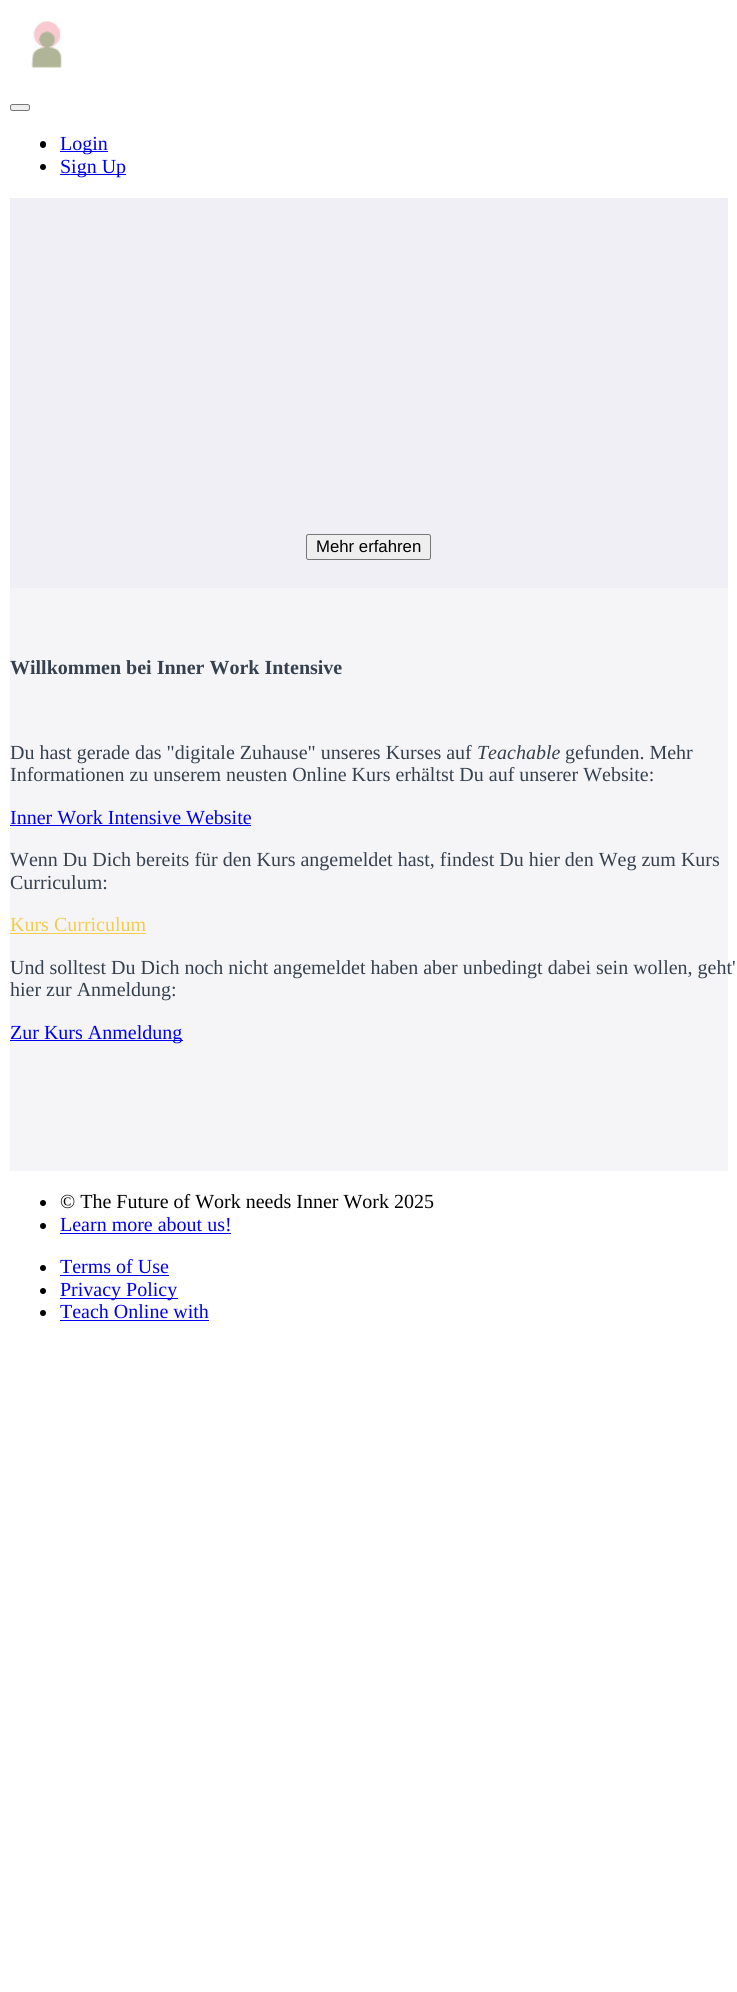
#include <cairo.h>
#include <math.h>
#include <stddef.h>

static cairo_t *ctx;

static void use_color(int r, int g, int b) {
    cairo_set_source_rgb(ctx, r / 255.0, g / 255.0, b / 255.0);
}

static void round_rect(double x, double y, double w, double h, double r) {
    cairo_new_sub_path(ctx);
    cairo_arc(ctx, x + w - r, y + h - r, r, 0, M_PI / 2);
    cairo_arc(ctx, x + r, y + h - r, r, M_PI / 2, M_PI);
    cairo_arc(ctx, x + r, y + r, r, M_PI, 1.5 * M_PI);
    cairo_arc(ctx, x + w - r, y + r, r, 1.5 * M_PI, 2 * M_PI);
    cairo_close_path(ctx);
}

static void picture(const char *path, double x, double y, double w, double h) {
    cairo_surface_t *image = cairo_image_surface_create_from_png(path);
    cairo_save(ctx);
    cairo_set_source_surface(ctx, image, x, y);
    cairo_rectangle(ctx, x, y, w, h);
    cairo_fill(ctx);
    cairo_restore(ctx);
    cairo_surface_destroy(image);
}

int main(void) {
    cairo_surface_t *surface = cairo_image_surface_create(CAIRO_FORMAT_RGB24, 737, 1992);
    ctx = cairo_create(surface);
    cairo_font_options_t *options = cairo_font_options_create();
    cairo_font_options_set_hint_metrics(options, CAIRO_HINT_METRICS_OFF);
    cairo_font_options_set_hint_style(options, CAIRO_HINT_STYLE_NONE);
    cairo_set_font_options(ctx, options);
    cairo_set_miter_limit(ctx, 4);
    use_color(255, 255, 255);
    cairo_paint(ctx);
    picture("img1.png", 31, 21, 31, 47);
    use_color(239, 239, 239);
    round_rect(10.5, 104.5, 19, 6, 2);
    cairo_fill_preserve(ctx);
    use_color(118, 118, 118);
    cairo_set_line_width(ctx, 1);
    cairo_stroke(ctx);
    use_color(0, 0, 0);
    round_rect(40, 141, 6, 7, 3);
    cairo_fill(ctx);
    use_color(0, 0, 238);
    cairo_rectangle(ctx, 60, 151, 48, 1);
    cairo_fill(ctx);
    cairo_select_font_face(ctx, "Liberation Serif", CAIRO_FONT_SLANT_NORMAL, CAIRO_FONT_WEIGHT_NORMAL);
    cairo_set_font_size(ctx, 20);
    cairo_move_to(ctx, 60, 150);
    cairo_show_text(ctx, "Login");
    use_color(0, 0, 0);
    cairo_new_path(ctx);
    cairo_arc(ctx, 43, 167, 3, 0, 2 * M_PI);
    cairo_fill(ctx);
    use_color(0, 0, 238);
    cairo_rectangle(ctx, 60, 174, 66, 1);
    cairo_fill(ctx);
    cairo_move_to(ctx, 60, 173);
    cairo_show_text(ctx, "Sign Up");
    use_color(239, 239, 245);
    cairo_rectangle(ctx, 10, 198, 718, 390);
    cairo_fill(ctx);
    use_color(239, 239, 239);
    round_rect(306.5, 534.5, 124, 25, 2);
    cairo_fill_preserve(ctx);
    use_color(118, 118, 118);
    cairo_stroke(ctx);
    cairo_select_font_face(ctx, "Liberation Sans", CAIRO_FONT_SLANT_NORMAL, CAIRO_FONT_WEIGHT_NORMAL);
    cairo_set_font_size(ctx, 16.75);
    use_color(0, 0, 0);
    cairo_move_to(ctx, 316, 552);
    cairo_show_text(ctx, "Mehr erfahren");
    use_color(245, 245, 248);
    cairo_rectangle(ctx, 10, 588, 718, 583);
    cairo_fill(ctx);
    cairo_select_font_face(ctx, "Liberation Serif", CAIRO_FONT_SLANT_NORMAL, CAIRO_FONT_WEIGHT_BOLD);
    cairo_set_font_size(ctx, 20);
    use_color(54, 65, 77);
    cairo_move_to(ctx, 10, 674);
    cairo_show_text(ctx, "Willkommen bei Inner Work Intensive");
    cairo_select_font_face(ctx, "Liberation Serif", CAIRO_FONT_SLANT_NORMAL, CAIRO_FONT_WEIGHT_NORMAL);
    cairo_move_to(ctx, 10, 759);
    cairo_show_text(ctx, "Du hast gerade das \"digitale Zuhause\" unseres Kurses auf");
    cairo_select_font_face(ctx, "Liberation Serif", CAIRO_FONT_SLANT_ITALIC, CAIRO_FONT_WEIGHT_NORMAL);
    cairo_move_to(ctx, 477, 759);
    cairo_show_text(ctx, "Teachable");
    cairo_select_font_face(ctx, "Liberation Serif", CAIRO_FONT_SLANT_NORMAL, CAIRO_FONT_WEIGHT_NORMAL);
    cairo_move_to(ctx, 565, 759);
    cairo_show_text(ctx, "gefunden. Mehr");
    cairo_move_to(ctx, 10, 781);
    cairo_show_text(ctx, "Informationen zu unserem neusten Online Kurs erhältst Du auf unserer Website:");
    use_color(0, 0, 238);
    cairo_move_to(ctx, 10, 824);
    cairo_show_text(ctx, "Inner Work Intensive Website");
    cairo_rectangle(ctx, 10, 825, 241, 1);
    cairo_fill(ctx);
    use_color(54, 65, 77);
    cairo_move_to(ctx, 10, 866);
    cairo_show_text(ctx, "Wenn Du Dich bereits für den Kurs angemeldet hast, findest Du hier den Weg zum Kurs");
    cairo_move_to(ctx, 10, 889);
    cairo_show_text(ctx, "Curriculum:");
    use_color(245, 204, 73);
    cairo_move_to(ctx, 10, 931);
    cairo_show_text(ctx, "Kurs Curriculum");
    cairo_rectangle(ctx, 10, 933, 136, 1);
    cairo_fill(ctx);
    use_color(54, 65, 77);
    cairo_move_to(ctx, 10, 974);
    cairo_show_text(ctx, "Und solltest Du Dich noch nicht angemeldet haben aber unbedingt dabei sein wollen, geht'");
    cairo_move_to(ctx, 10, 996);
    cairo_show_text(ctx, "hier zur Anmeldung:");
    use_color(0, 0, 238);
    cairo_rectangle(ctx, 10, 1040, 173, 1);
    cairo_fill(ctx);
    cairo_move_to(ctx, 10, 1039);
    cairo_show_text(ctx, "Zur Kurs Anmeldung");
    use_color(0, 0, 0);
    cairo_new_path(ctx);
    cairo_arc(ctx, 43, 1203, 3, 0, 2 * M_PI);
    cairo_fill(ctx);
    cairo_move_to(ctx, 60, 1208);
    cairo_show_text(ctx, "© The Future of Work needs Inner Work 2025");
    cairo_new_path(ctx);
    cairo_arc(ctx, 43, 1226, 3, 0, 2 * M_PI);
    cairo_fill(ctx);
    use_color(0, 0, 238);
    cairo_move_to(ctx, 60, 1231);
    cairo_show_text(ctx, "Learn more about us!");
    cairo_rectangle(ctx, 60, 1233, 171, 1);
    cairo_fill(ctx);
    use_color(0, 0, 0);
    cairo_arc(ctx, 43, 1268, 3, 0, 2 * M_PI);
    cairo_fill(ctx);
    use_color(0, 0, 238);
    cairo_move_to(ctx, 60, 1273);
    cairo_show_text(ctx, "Terms of Use");
    cairo_rectangle(ctx, 60, 1275, 109, 1);
    cairo_fill(ctx);
    use_color(0, 0, 0);
    cairo_arc(ctx, 43, 1291, 3, 0, 2 * M_PI);
    cairo_fill(ctx);
    use_color(0, 0, 238);
    cairo_rectangle(ctx, 60, 1298, 118, 1);
    cairo_fill(ctx);
    cairo_move_to(ctx, 60, 1296);
    cairo_show_text(ctx, "Privacy Policy");
    use_color(0, 0, 0);
    cairo_new_path(ctx);
    cairo_arc(ctx, 43, 1313, 3, 0, 2 * M_PI);
    cairo_fill(ctx);
    use_color(0, 0, 238);
    cairo_move_to(ctx, 60, 1318);
    cairo_show_text(ctx, "Teach Online with");
    cairo_rectangle(ctx, 60, 1320, 149, 1);
    cairo_fill(ctx);
    cairo_surface_write_to_png(surface, "result.png");
    cairo_font_options_destroy(options);
    cairo_destroy(ctx);
    cairo_surface_destroy(surface);
    return 0;
}
